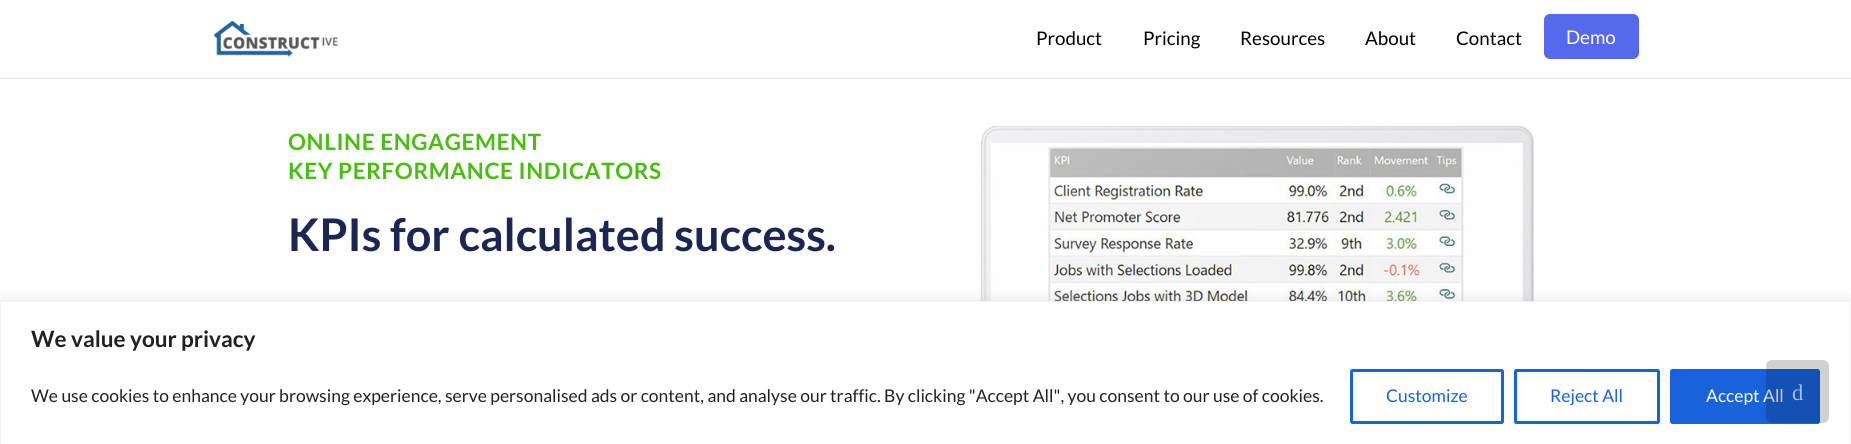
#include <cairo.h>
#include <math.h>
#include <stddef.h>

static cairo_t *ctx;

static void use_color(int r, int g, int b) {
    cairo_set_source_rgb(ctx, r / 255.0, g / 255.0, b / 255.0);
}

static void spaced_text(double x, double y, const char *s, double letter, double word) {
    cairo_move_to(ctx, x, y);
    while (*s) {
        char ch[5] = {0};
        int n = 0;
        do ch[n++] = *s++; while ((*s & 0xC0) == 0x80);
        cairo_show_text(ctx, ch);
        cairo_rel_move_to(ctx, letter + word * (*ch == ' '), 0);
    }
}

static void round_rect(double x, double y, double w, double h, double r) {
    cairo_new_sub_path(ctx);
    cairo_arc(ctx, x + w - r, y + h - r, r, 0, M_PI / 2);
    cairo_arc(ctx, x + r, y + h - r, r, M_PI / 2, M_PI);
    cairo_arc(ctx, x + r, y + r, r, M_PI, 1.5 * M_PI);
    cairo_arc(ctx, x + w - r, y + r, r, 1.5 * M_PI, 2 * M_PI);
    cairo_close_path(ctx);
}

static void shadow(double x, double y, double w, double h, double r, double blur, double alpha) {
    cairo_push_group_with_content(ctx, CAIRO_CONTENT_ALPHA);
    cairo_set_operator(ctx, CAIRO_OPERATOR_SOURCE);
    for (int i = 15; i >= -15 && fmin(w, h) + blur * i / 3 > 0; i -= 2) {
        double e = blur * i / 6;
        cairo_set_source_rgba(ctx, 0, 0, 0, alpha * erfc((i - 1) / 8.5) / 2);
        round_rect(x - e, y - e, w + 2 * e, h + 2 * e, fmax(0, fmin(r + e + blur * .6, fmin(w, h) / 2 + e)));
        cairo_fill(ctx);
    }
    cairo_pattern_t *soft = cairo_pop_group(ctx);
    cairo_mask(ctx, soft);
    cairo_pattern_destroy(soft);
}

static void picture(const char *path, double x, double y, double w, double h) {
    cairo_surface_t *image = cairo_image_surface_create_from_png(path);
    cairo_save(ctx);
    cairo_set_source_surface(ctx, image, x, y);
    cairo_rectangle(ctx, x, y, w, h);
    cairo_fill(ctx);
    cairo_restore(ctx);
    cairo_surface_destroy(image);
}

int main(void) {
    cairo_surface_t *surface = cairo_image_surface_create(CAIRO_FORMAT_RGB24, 1851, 444);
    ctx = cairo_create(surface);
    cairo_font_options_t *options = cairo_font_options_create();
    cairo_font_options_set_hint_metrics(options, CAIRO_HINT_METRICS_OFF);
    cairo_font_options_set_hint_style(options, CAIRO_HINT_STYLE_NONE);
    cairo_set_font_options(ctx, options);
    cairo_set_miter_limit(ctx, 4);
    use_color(255, 255, 255);
    cairo_paint(ctx);
    use_color(231, 231, 231);
    cairo_rectangle(ctx, 0, 78, 1851, 1);
    cairo_fill(ctx);
    picture("img1.png", 213, 20, 125, 38);
    cairo_select_font_face(ctx, "Lato", CAIRO_FONT_SLANT_NORMAL, CAIRO_FONT_WEIGHT_NORMAL);
    cairo_set_font_size(ctx, 18.75);
    use_color(2, 1, 1);
    cairo_move_to(ctx, 1036, 45);
    cairo_show_text(ctx, "Product");
    cairo_move_to(ctx, 1143, 45);
    cairo_show_text(ctx, "Pricing");
    cairo_move_to(ctx, 1240, 45);
    cairo_show_text(ctx, "Resources");
    cairo_move_to(ctx, 1365, 45);
    cairo_show_text(ctx, "About");
    cairo_move_to(ctx, 1456, 45);
    cairo_show_text(ctx, "Contact");
    use_color(86, 105, 236);
    round_rect(1544, 14, 95, 45, 6);
    cairo_fill(ctx);
    use_color(255, 255, 255);
    cairo_move_to(ctx, 1566, 44);
    cairo_show_text(ctx, "Demo");
    cairo_select_font_face(ctx, "Lato", CAIRO_FONT_SLANT_NORMAL, CAIRO_FONT_WEIGHT_BOLD);
    cairo_set_font_size(ctx, 22.5);
    use_color(73, 190, 14);
    spaced_text(288, 150, "ONLINE ENGAGEMENT", 0.6, 0);
    spaced_text(288, 179, "KEY PERFORMANCE INDICATORS", 0.6, 0);
    cairo_set_font_size(ctx, 45);
    use_color(28, 38, 84);
    cairo_move_to(ctx, 288, 251);
    cairo_show_text(ctx, "KPIs for calculated success.");
    picture("img2.png", 980, 126, 554, 175);
    use_color(172, 171, 171);
    shadow(0, 300, 1851, 144, 0, 6, 0.3);
    use_color(255, 255, 255);
    cairo_rectangle(ctx, 0.5, 301.5, 1850, 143);
    cairo_fill_preserve(ctx);
    use_color(244, 244, 244);
    cairo_set_line_width(ctx, 1);
    cairo_stroke(ctx);
    cairo_set_font_size(ctx, 22.5);
    use_color(33, 33, 33);
    cairo_move_to(ctx, 31, 347);
    cairo_show_text(ctx, "We value your privacy");
    cairo_select_font_face(ctx, "Lato", CAIRO_FONT_SLANT_NORMAL, CAIRO_FONT_WEIGHT_NORMAL);
    cairo_set_font_size(ctx, 17.5);
    cairo_move_to(ctx, 31, 402);
    cairo_show_text(ctx, "We use cookies to enhance your browsing experience, serve personalised ads or content, and analyse our traffic. By clicking \"Accept All\", you consent to our use of cookies.");
    round_rect(1351.5, 370.5, 151, 52, 1);
    use_color(24, 99, 220);
    cairo_set_line_width(ctx, 3);
    cairo_stroke(ctx);
    cairo_move_to(ctx, 1386, 402);
    cairo_show_text(ctx, "Customize");
    round_rect(1515.5, 370.5, 143, 52, 1);
    cairo_stroke(ctx);
    cairo_move_to(ctx, 1550, 402);
    cairo_show_text(ctx, "Reject All");
    round_rect(1671.5, 370.5, 147, 52, 1);
    cairo_fill_preserve(ctx);
    cairo_stroke(ctx);
    use_color(255, 255, 255);
    cairo_move_to(ctx, 1706, 402);
    cairo_show_text(ctx, "Accept All");
    cairo_set_source_rgba(ctx, 0, 0, 0, 0.18);
    round_rect(1766, 360, 63, 63, 6);
    cairo_fill(ctx);
    cairo_select_font_face(ctx, "Liberation Serif", CAIRO_FONT_SLANT_NORMAL, CAIRO_FONT_WEIGHT_NORMAL);
    cairo_set_font_size(ctx, 22.5);
    use_color(163, 193, 241);
    cairo_move_to(ctx, 1792, 400);
    cairo_show_text(ctx, "d");
    cairo_surface_write_to_png(surface, "result.png");
    cairo_font_options_destroy(options);
    cairo_destroy(ctx);
    cairo_surface_destroy(surface);
    return 0;
}
